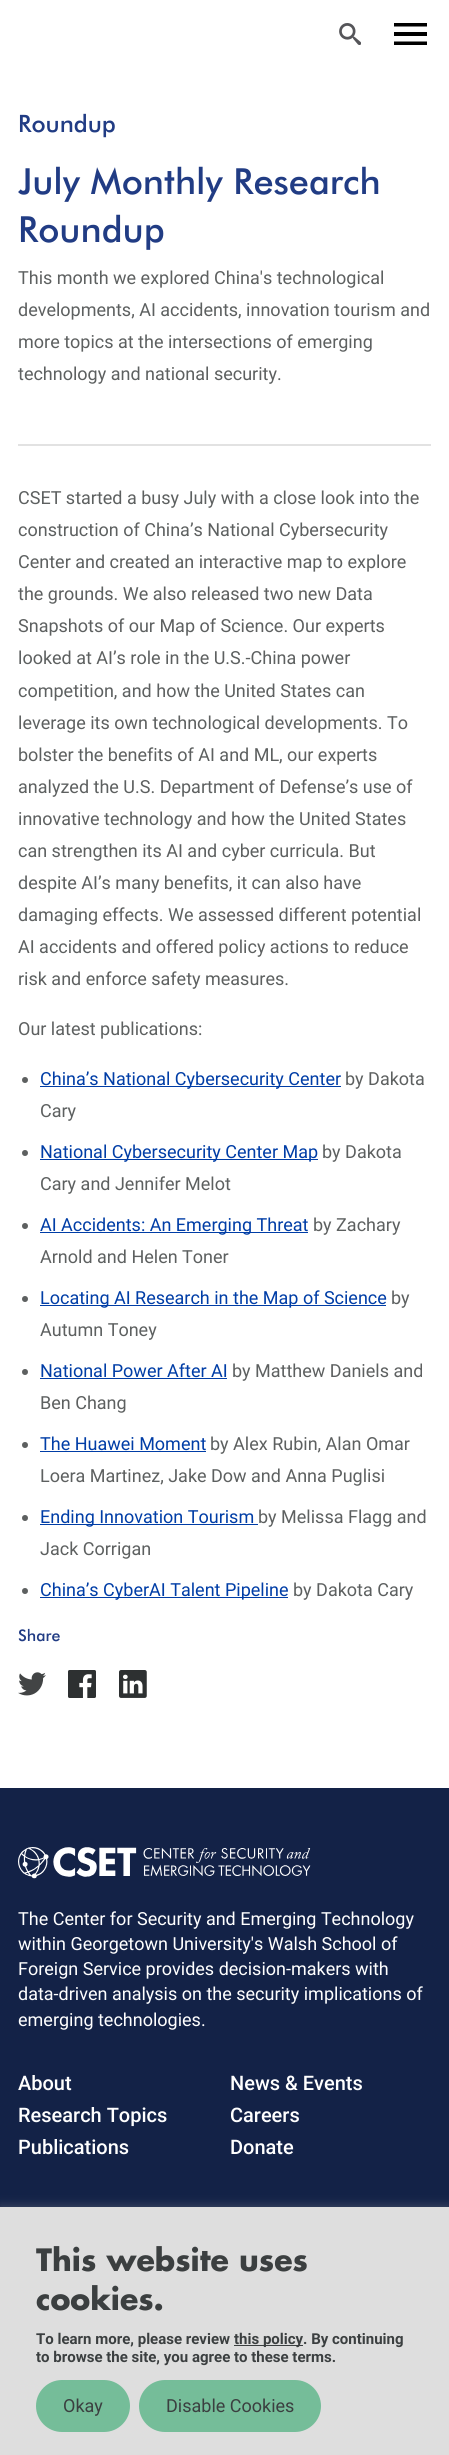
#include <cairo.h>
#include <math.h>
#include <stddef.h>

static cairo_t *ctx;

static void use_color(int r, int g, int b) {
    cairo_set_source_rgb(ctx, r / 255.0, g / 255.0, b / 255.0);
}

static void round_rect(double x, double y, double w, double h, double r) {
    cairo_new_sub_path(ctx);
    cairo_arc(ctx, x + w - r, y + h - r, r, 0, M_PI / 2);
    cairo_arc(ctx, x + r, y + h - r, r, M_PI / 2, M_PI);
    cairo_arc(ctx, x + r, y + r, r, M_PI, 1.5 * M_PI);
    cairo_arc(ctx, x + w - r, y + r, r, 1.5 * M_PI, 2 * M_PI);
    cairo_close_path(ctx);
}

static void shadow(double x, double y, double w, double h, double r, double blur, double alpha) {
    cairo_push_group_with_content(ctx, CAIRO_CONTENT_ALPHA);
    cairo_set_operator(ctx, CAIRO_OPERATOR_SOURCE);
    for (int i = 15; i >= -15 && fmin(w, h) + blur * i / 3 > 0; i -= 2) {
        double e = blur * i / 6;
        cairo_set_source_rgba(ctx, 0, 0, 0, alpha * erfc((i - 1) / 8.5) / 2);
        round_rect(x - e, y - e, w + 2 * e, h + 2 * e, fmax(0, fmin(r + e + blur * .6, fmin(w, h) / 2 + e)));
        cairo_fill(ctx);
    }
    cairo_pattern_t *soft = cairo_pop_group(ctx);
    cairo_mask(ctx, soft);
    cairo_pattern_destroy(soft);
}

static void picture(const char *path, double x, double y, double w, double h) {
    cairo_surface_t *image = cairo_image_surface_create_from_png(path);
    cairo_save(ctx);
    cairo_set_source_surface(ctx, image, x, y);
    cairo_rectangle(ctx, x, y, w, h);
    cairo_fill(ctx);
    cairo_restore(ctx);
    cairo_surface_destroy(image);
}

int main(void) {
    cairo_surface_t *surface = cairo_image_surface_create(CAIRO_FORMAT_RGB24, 449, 2455);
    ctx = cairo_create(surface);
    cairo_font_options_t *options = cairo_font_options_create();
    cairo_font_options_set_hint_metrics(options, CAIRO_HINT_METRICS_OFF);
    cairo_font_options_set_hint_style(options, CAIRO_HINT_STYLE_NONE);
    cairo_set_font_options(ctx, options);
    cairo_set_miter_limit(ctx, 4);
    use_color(255, 255, 255);
    cairo_paint(ctx);
    picture("img1.png", 339, 23, 22, 22);
    use_color(0, 0, 0);
    cairo_new_path(ctx);
    cairo_move_to(ctx, 394, 45);
    cairo_line_to(ctx, 427, 45);
    cairo_line_to(ctx, 427, 41.5);
    cairo_line_to(ctx, 394, 41.5);
    cairo_close_path(ctx);
    cairo_move_to(ctx, 394, 36);
    cairo_line_to(ctx, 427, 36);
    cairo_line_to(ctx, 427, 32);
    cairo_line_to(ctx, 394, 32);
    cairo_close_path(ctx);
    cairo_move_to(ctx, 394, 23);
    cairo_line_to(ctx, 394, 26.5);
    cairo_line_to(ctx, 427, 26.5);
    cairo_line_to(ctx, 427, 23);
    cairo_close_path(ctx);
    cairo_fill(ctx);
    use_color(226, 226, 226);
    cairo_rectangle(ctx, 18, 444, 413, 2);
    cairo_fill(ctx);
    cairo_select_font_face(ctx, "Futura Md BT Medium", CAIRO_FONT_SLANT_NORMAL, CAIRO_FONT_WEIGHT_NORMAL);
    cairo_set_font_size(ctx, 24);
    use_color(33, 60, 132);
    cairo_move_to(ctx, 18, 132);
    cairo_show_text(ctx, "Roundup");
    cairo_set_font_size(ctx, 36);
    cairo_move_to(ctx, 18, 194);
    cairo_show_text(ctx, "July Monthly Research");
    cairo_move_to(ctx, 18, 242);
    cairo_show_text(ctx, "Roundup");
    cairo_select_font_face(ctx, "Roboto", CAIRO_FONT_SLANT_NORMAL, CAIRO_FONT_WEIGHT_NORMAL);
    cairo_set_font_size(ctx, 18);
    use_color(93, 96, 96);
    cairo_move_to(ctx, 18, 284);
    cairo_show_text(ctx, "This month we explored China's technological");
    cairo_move_to(ctx, 18, 316);
    cairo_show_text(ctx, "developments, AI accidents, innovation tourism and");
    cairo_move_to(ctx, 18, 348);
    cairo_show_text(ctx, "more topics at the intersections of emerging");
    cairo_move_to(ctx, 18, 380);
    cairo_show_text(ctx, "technology and national security.");
    cairo_move_to(ctx, 18, 504);
    cairo_show_text(ctx, "CSET started a busy July with a close look into the");
    cairo_move_to(ctx, 18, 536);
    cairo_show_text(ctx, "construction of China’s National Cybersecurity");
    cairo_move_to(ctx, 18, 568);
    cairo_show_text(ctx, "Center and created an interactive map to explore");
    cairo_move_to(ctx, 18, 600);
    cairo_show_text(ctx, "the grounds. We also released two new Data");
    cairo_move_to(ctx, 18, 632);
    cairo_show_text(ctx, "Snapshots of our Map of Science. Our experts");
    cairo_move_to(ctx, 18, 664);
    cairo_show_text(ctx, "looked at AI’s role in the U.S.-China power");
    cairo_move_to(ctx, 18, 697);
    cairo_show_text(ctx, "competition, and how the United States can");
    cairo_move_to(ctx, 18, 729);
    cairo_show_text(ctx, "leverage its own technological developments. To");
    cairo_move_to(ctx, 18, 761);
    cairo_show_text(ctx, "bolster the benefits of AI and ML, our experts");
    cairo_move_to(ctx, 18, 793);
    cairo_show_text(ctx, "analyzed the U.S. Department of Defense’s use of");
    cairo_move_to(ctx, 18, 825);
    cairo_show_text(ctx, "innovative technology and how the United States");
    cairo_move_to(ctx, 18, 857);
    cairo_show_text(ctx, "can strengthen its AI and cyber curricula. But");
    cairo_move_to(ctx, 18, 889);
    cairo_show_text(ctx, "despite AI’s many benefits, it can also have");
    cairo_move_to(ctx, 18, 921);
    cairo_show_text(ctx, "damaging effects. We assessed different potential");
    cairo_move_to(ctx, 18, 953);
    cairo_show_text(ctx, "AI accidents and offered policy actions to reduce");
    cairo_move_to(ctx, 18, 985);
    cairo_show_text(ctx, "risk and enforce safety measures.");
    cairo_move_to(ctx, 18, 1035);
    cairo_show_text(ctx, "Our latest publications:");
    cairo_new_path(ctx);
    cairo_arc(ctx, 25, 1080, 3, 0, 2 * M_PI);
    cairo_fill(ctx);
    use_color(0, 61, 166);
    cairo_rectangle(ctx, 40, 1086, 301, 1);
    cairo_fill(ctx);
    cairo_move_to(ctx, 40, 1085);
    cairo_show_text(ctx, "China’s National Cybersecurity Center");
    use_color(93, 96, 96);
    cairo_move_to(ctx, 345, 1085);
    cairo_show_text(ctx, "by Dakota");
    cairo_move_to(ctx, 40, 1117);
    cairo_show_text(ctx, "Cary");
    cairo_new_path(ctx);
    cairo_arc(ctx, 25, 1153, 3, 0, 2 * M_PI);
    cairo_fill(ctx);
    use_color(0, 61, 166);
    cairo_rectangle(ctx, 40, 1159, 278, 1);
    cairo_fill(ctx);
    cairo_move_to(ctx, 40, 1158);
    cairo_show_text(ctx, "National Cybersecurity Center Map");
    use_color(93, 96, 96);
    cairo_move_to(ctx, 322, 1158);
    cairo_show_text(ctx, "by Dakota");
    cairo_move_to(ctx, 40, 1190);
    cairo_show_text(ctx, "Cary and Jennifer Melot");
    cairo_new_path(ctx);
    cairo_arc(ctx, 25, 1226, 3, 0, 2 * M_PI);
    cairo_fill(ctx);
    use_color(0, 61, 166);
    cairo_rectangle(ctx, 40, 1232, 268, 1);
    cairo_fill(ctx);
    cairo_move_to(ctx, 40, 1231);
    cairo_show_text(ctx, "AI Accidents: An Emerging Threat");
    use_color(93, 96, 96);
    cairo_move_to(ctx, 313, 1231);
    cairo_show_text(ctx, "by Zachary");
    cairo_move_to(ctx, 40, 1263);
    cairo_show_text(ctx, "Arnold and Helen Toner");
    cairo_new_path(ctx);
    cairo_arc(ctx, 25, 1299, 3, 0, 2 * M_PI);
    cairo_fill(ctx);
    use_color(0, 61, 166);
    cairo_rectangle(ctx, 40, 1305, 346, 1);
    cairo_fill(ctx);
    cairo_move_to(ctx, 40, 1304);
    cairo_show_text(ctx, "Locating AI Research in the Map of Science");
    use_color(93, 96, 96);
    cairo_move_to(ctx, 391, 1304);
    cairo_show_text(ctx, "by");
    cairo_move_to(ctx, 40, 1336);
    cairo_show_text(ctx, "Autumn Toney");
    cairo_new_path(ctx);
    cairo_arc(ctx, 25, 1372, 3, 0, 2 * M_PI);
    cairo_fill(ctx);
    use_color(0, 61, 166);
    cairo_move_to(ctx, 40, 1377);
    cairo_show_text(ctx, "National Power After AI");
    cairo_rectangle(ctx, 40, 1378, 187, 1);
    cairo_fill(ctx);
    use_color(93, 96, 96);
    cairo_move_to(ctx, 232, 1377);
    cairo_show_text(ctx, "by Matthew Daniels and");
    cairo_move_to(ctx, 40, 1409);
    cairo_show_text(ctx, "Ben Chang");
    cairo_new_path(ctx);
    cairo_arc(ctx, 25, 1445, 3, 0, 2 * M_PI);
    cairo_fill(ctx);
    use_color(0, 61, 166);
    cairo_move_to(ctx, 40, 1450);
    cairo_show_text(ctx, "The Huawei Moment");
    cairo_rectangle(ctx, 40, 1451, 166, 1);
    cairo_fill(ctx);
    use_color(93, 96, 96);
    cairo_move_to(ctx, 210, 1450);
    cairo_show_text(ctx, "by Alex Rubin, Alan Omar");
    cairo_move_to(ctx, 40, 1482);
    cairo_show_text(ctx, "Loera Martinez, Jake Dow and Anna Puglisi");
    cairo_new_path(ctx);
    cairo_arc(ctx, 25, 1518, 3, 0, 2 * M_PI);
    cairo_fill(ctx);
    use_color(0, 61, 166);
    cairo_rectangle(ctx, 40, 1524, 218, 1);
    cairo_fill(ctx);
    cairo_move_to(ctx, 40, 1523);
    cairo_show_text(ctx, "Ending Innovation Tourism");
    use_color(93, 96, 96);
    cairo_move_to(ctx, 258, 1523);
    cairo_show_text(ctx, "by Melissa Flagg and");
    cairo_move_to(ctx, 40, 1555);
    cairo_show_text(ctx, "Jack Corrigan");
    cairo_new_path(ctx);
    cairo_arc(ctx, 25, 1591, 3, 0, 2 * M_PI);
    cairo_fill(ctx);
    use_color(0, 61, 166);
    cairo_rectangle(ctx, 40, 1597, 248, 1);
    cairo_fill(ctx);
    cairo_move_to(ctx, 40, 1596);
    cairo_show_text(ctx, "China’s CyberAI Talent Pipeline");
    use_color(93, 96, 96);
    cairo_move_to(ctx, 293, 1596);
    cairo_show_text(ctx, "by Dakota Cary");
    cairo_select_font_face(ctx, "Futura Md BT Medium", CAIRO_FONT_SLANT_NORMAL, CAIRO_FONT_WEIGHT_NORMAL);
    cairo_set_font_size(ctx, 16);
    use_color(33, 60, 132);
    cairo_move_to(ctx, 18, 1641);
    cairo_show_text(ctx, "Share");
    picture("img2.png", 18, 1672, 28, 24);
    picture("img3.png", 68, 1670, 28, 28);
    picture("img4.png", 119, 1670, 28, 28);
    use_color(19, 34, 71);
    cairo_rectangle(ctx, 0, 1788, 449, 419);
    cairo_fill(ctx);
    picture("img5.png", 18, 1847, 293, 32);
    cairo_select_font_face(ctx, "Roboto", CAIRO_FONT_SLANT_NORMAL, CAIRO_FONT_WEIGHT_NORMAL);
    cairo_set_font_size(ctx, 18);
    use_color(255, 255, 255);
    cairo_move_to(ctx, 18, 1925);
    cairo_show_text(ctx, "The Center for Security and Emerging Technology");
    cairo_move_to(ctx, 18, 1950);
    cairo_show_text(ctx, "within Georgetown University's Walsh School of");
    cairo_move_to(ctx, 18, 1975);
    cairo_show_text(ctx, "Foreign Service provides decision-makers with");
    cairo_move_to(ctx, 18, 2000);
    cairo_show_text(ctx, "data-driven analysis on the security implications of");
    cairo_move_to(ctx, 18, 2026);
    cairo_show_text(ctx, "emerging technologies.");
    cairo_select_font_face(ctx, "Roboto Medium", CAIRO_FONT_SLANT_NORMAL, CAIRO_FONT_WEIGHT_NORMAL);
    cairo_set_font_size(ctx, 20);
    cairo_move_to(ctx, 18, 2090);
    cairo_show_text(ctx, "About");
    cairo_move_to(ctx, 230, 2090);
    cairo_show_text(ctx, "News & Events");
    cairo_move_to(ctx, 18, 2122);
    cairo_show_text(ctx, "Research Topics");
    cairo_move_to(ctx, 230, 2122);
    cairo_show_text(ctx, "Careers");
    cairo_move_to(ctx, 18, 2154);
    cairo_show_text(ctx, "Publications");
    cairo_move_to(ctx, 230, 2154);
    cairo_show_text(ctx, "Donate");
    use_color(172, 171, 171);
    shadow(0, 2206, 449, 248, 0, 5, 0.3);
    use_color(222, 222, 222);
    cairo_rectangle(ctx, 0, 2207, 449, 248);
    cairo_fill(ctx);
    cairo_select_font_face(ctx, "Futura", CAIRO_FONT_SLANT_NORMAL, CAIRO_FONT_WEIGHT_BOLD);
    cairo_set_font_size(ctx, 30);
    use_color(59, 63, 64);
    cairo_move_to(ctx, 36, 2271);
    cairo_show_text(ctx, "This website uses");
    cairo_move_to(ctx, 36, 2310);
    cairo_show_text(ctx, "cookies.");
    cairo_select_font_face(ctx, "Roboto", CAIRO_FONT_SLANT_NORMAL, CAIRO_FONT_WEIGHT_BOLD);
    cairo_set_font_size(ctx, 15);
    cairo_move_to(ctx, 36, 2344);
    cairo_show_text(ctx, "To learn more, please review");
    cairo_rectangle(ctx, 234, 2345, 69, 1);
    cairo_fill(ctx);
    cairo_move_to(ctx, 234, 2344);
    cairo_show_text(ctx, "this policy. By continuing");
    cairo_move_to(ctx, 36, 2362);
    cairo_show_text(ctx, "to browse the site, you agree to these terms.");
    use_color(117, 189, 153);
    round_rect(36, 2380, 94, 52, 26);
    cairo_fill(ctx);
    cairo_select_font_face(ctx, "Roboto", CAIRO_FONT_SLANT_NORMAL, CAIRO_FONT_WEIGHT_NORMAL);
    cairo_set_font_size(ctx, 18);
    use_color(59, 63, 64);
    cairo_move_to(ctx, 63, 2412);
    cairo_show_text(ctx, "Okay");
    use_color(117, 189, 153);
    round_rect(139, 2380, 182, 52, 26);
    cairo_fill(ctx);
    use_color(59, 63, 64);
    cairo_move_to(ctx, 166, 2412);
    cairo_show_text(ctx, "Disable Cookies");
    cairo_surface_write_to_png(surface, "result.png");
    cairo_font_options_destroy(options);
    cairo_destroy(ctx);
    cairo_surface_destroy(surface);
    return 0;
}
